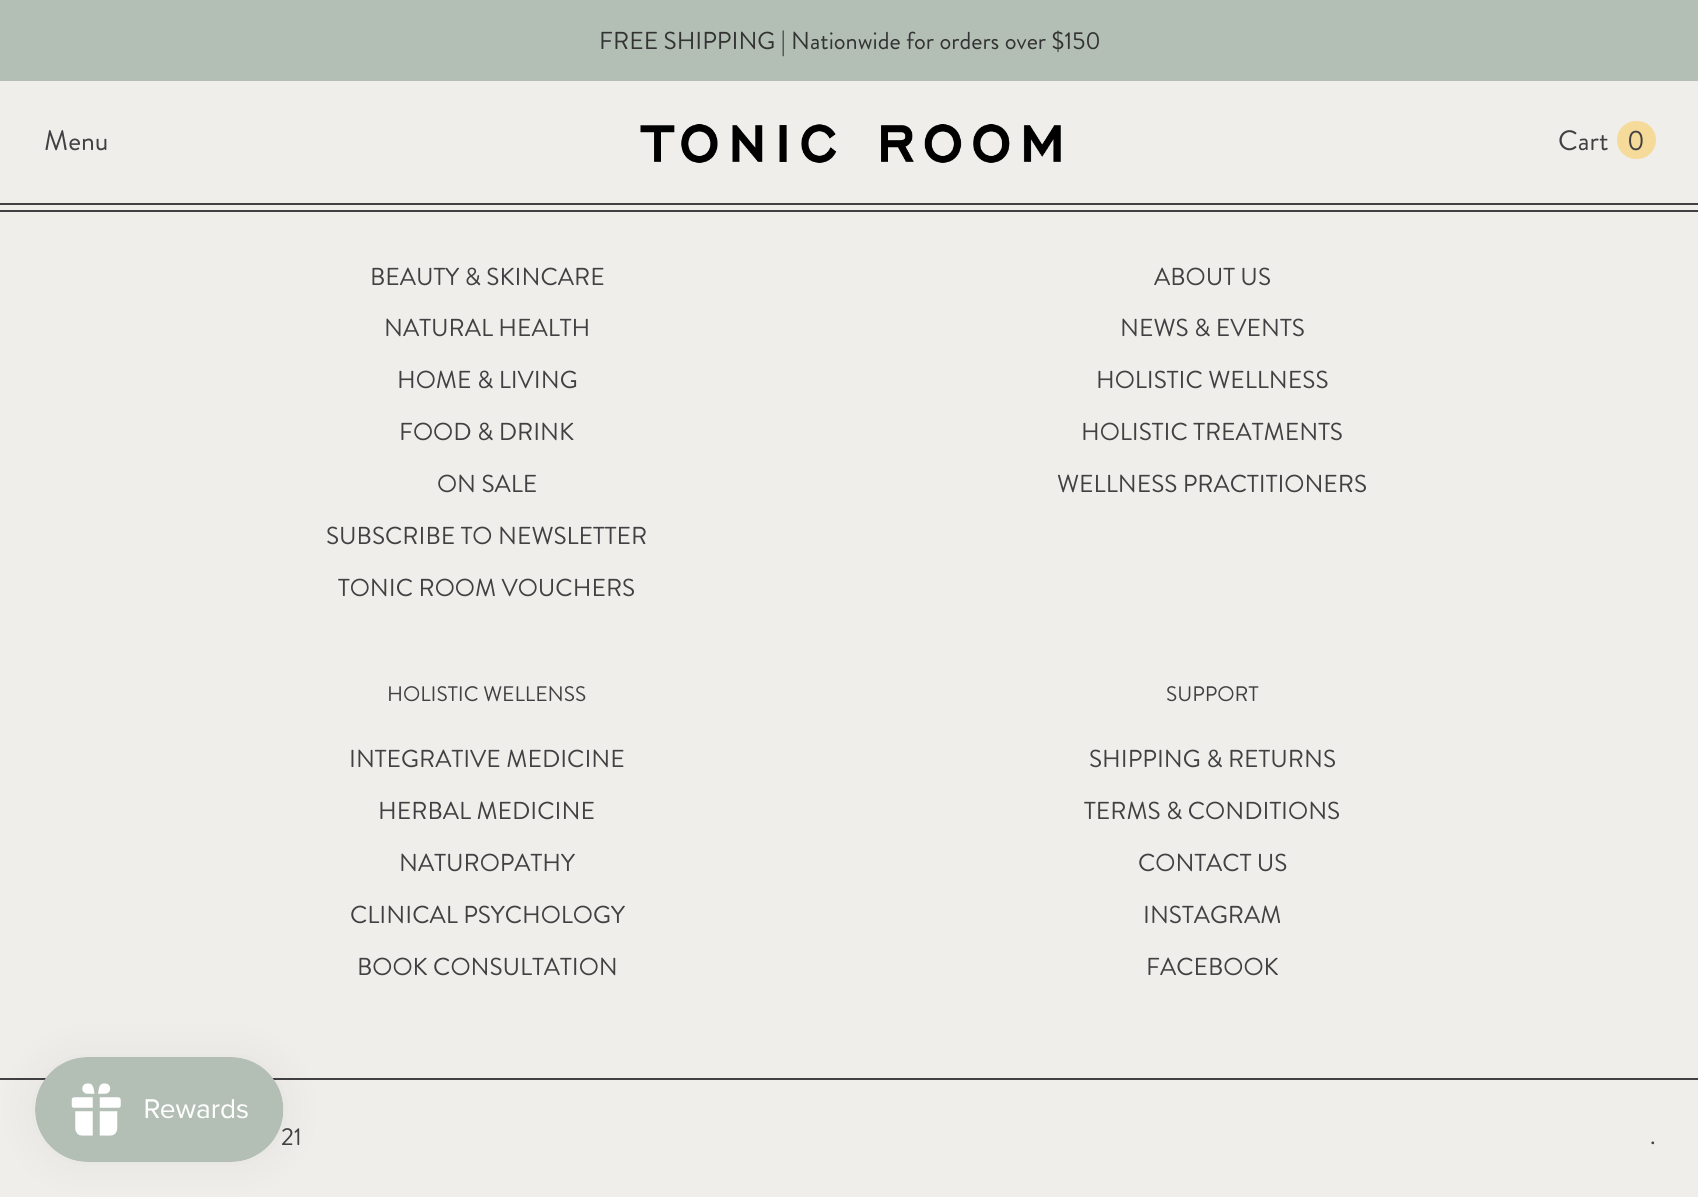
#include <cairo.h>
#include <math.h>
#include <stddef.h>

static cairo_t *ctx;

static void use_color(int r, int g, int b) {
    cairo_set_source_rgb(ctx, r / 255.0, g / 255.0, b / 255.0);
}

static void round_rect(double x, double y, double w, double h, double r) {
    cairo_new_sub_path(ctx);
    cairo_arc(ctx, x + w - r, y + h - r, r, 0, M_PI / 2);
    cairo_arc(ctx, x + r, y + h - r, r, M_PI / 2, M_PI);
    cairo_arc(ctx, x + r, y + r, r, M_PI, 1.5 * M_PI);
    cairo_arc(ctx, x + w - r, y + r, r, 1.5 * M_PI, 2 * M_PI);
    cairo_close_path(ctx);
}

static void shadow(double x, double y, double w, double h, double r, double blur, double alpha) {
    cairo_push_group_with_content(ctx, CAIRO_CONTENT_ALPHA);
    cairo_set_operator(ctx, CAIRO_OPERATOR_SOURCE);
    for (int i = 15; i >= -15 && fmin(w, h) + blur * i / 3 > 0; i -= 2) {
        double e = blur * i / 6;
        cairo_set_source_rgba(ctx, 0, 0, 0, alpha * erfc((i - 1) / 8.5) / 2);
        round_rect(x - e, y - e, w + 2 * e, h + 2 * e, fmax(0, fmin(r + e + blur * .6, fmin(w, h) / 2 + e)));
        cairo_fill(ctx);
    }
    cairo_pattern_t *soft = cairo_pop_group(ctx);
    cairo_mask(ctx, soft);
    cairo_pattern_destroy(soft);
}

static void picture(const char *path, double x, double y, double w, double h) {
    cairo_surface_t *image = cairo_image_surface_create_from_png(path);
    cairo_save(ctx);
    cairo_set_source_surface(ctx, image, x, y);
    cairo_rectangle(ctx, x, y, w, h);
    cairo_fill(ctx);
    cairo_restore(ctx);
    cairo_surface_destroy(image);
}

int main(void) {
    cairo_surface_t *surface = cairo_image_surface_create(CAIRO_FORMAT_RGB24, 1698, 1197);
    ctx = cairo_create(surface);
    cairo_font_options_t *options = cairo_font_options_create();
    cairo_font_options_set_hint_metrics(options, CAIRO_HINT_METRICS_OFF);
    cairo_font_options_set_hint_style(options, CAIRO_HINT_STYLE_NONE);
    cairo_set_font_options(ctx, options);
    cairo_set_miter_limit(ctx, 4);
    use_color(239, 238, 234);
    cairo_paint(ctx);
    use_color(179, 191, 181);
    cairo_rectangle(ctx, 0, 0, 1698, 81);
    cairo_fill(ctx);
    cairo_select_font_face(ctx, "Brandon Grotesque", CAIRO_FONT_SLANT_NORMAL, CAIRO_FONT_WEIGHT_NORMAL);
    cairo_set_font_size(ctx, 24.5);
    use_color(51, 51, 51);
    cairo_move_to(ctx, 599, 49);
    cairo_show_text(ctx, "FREE SHIPPING | Nationwide for orders over $150");
    cairo_set_font_size(ctx, 28);
    use_color(65, 64, 66);
    cairo_move_to(ctx, 44, 150);
    cairo_show_text(ctx, "Menu");
    picture("img1.png", 640, 124, 421, 39);
    cairo_move_to(ctx, 1558, 150);
    cairo_show_text(ctx, "Cart");
    use_color(246, 218, 153);
    round_rect(1617, 121, 39, 38, 19);
    cairo_fill(ctx);
    use_color(65, 64, 66);
    cairo_move_to(ctx, 1627, 150);
    cairo_show_text(ctx, "0");
    cairo_rectangle(ctx, 0, 203, 1698, 2);
    cairo_fill(ctx);
    cairo_rectangle(ctx, 0, 210, 1698, 2);
    cairo_fill(ctx);
    cairo_rectangle(ctx, 0, 1078, 1698, 2);
    cairo_fill(ctx);
    use_color(0, 0, 0);
    shadow(35, 1057, 249, 105, 52.5, 22, 0.05);
    cairo_set_font_size(ctx, 24.5);
    use_color(65, 64, 66);
    cairo_move_to(ctx, 281, 1145);
    cairo_show_text(ctx, "21");
    picture("img2.png", 35, 1057, 249, 105);
    cairo_move_to(ctx, 370, 285);
    cairo_show_text(ctx, "BEAUTY & SKINCARE");
    cairo_move_to(ctx, 384, 336);
    cairo_show_text(ctx, "NATURAL HEALTH");
    cairo_move_to(ctx, 397, 388);
    cairo_show_text(ctx, "HOME & LIVING");
    cairo_move_to(ctx, 399, 440);
    cairo_show_text(ctx, "FOOD & DRINK");
    cairo_move_to(ctx, 437, 492);
    cairo_show_text(ctx, "ON SALE");
    cairo_move_to(ctx, 326, 544);
    cairo_show_text(ctx, "SUBSCRIBE TO NEWSLETTER");
    cairo_move_to(ctx, 338, 596);
    cairo_show_text(ctx, "TONIC ROOM VOUCHERS");
    cairo_move_to(ctx, 1154, 285);
    cairo_show_text(ctx, "ABOUT US");
    cairo_move_to(ctx, 1120, 336);
    cairo_show_text(ctx, "NEWS & EVENTS");
    cairo_move_to(ctx, 1096, 388);
    cairo_show_text(ctx, "HOLISTIC WELLNESS");
    cairo_move_to(ctx, 1081, 440);
    cairo_show_text(ctx, "HOLISTIC TREATMENTS");
    cairo_move_to(ctx, 1057, 492);
    cairo_show_text(ctx, "WELLNESS PRACTITIONERS");
    cairo_set_font_size(ctx, 21);
    cairo_move_to(ctx, 387, 701);
    cairo_show_text(ctx, "HOLISTIC WELLENSS");
    cairo_set_font_size(ctx, 24.5);
    cairo_move_to(ctx, 349, 767);
    cairo_show_text(ctx, "INTEGRATIVE MEDICINE");
    cairo_move_to(ctx, 378, 819);
    cairo_show_text(ctx, "HERBAL MEDICINE");
    cairo_move_to(ctx, 399, 871);
    cairo_show_text(ctx, "NATUROPATHY");
    cairo_move_to(ctx, 350, 923);
    cairo_show_text(ctx, "CLINICAL PSYCHOLOGY");
    cairo_move_to(ctx, 357, 975);
    cairo_show_text(ctx, "BOOK CONSULTATION");
    cairo_set_font_size(ctx, 21);
    cairo_move_to(ctx, 1166, 701);
    cairo_show_text(ctx, "SUPPORT");
    cairo_set_font_size(ctx, 24.5);
    cairo_move_to(ctx, 1089, 767);
    cairo_show_text(ctx, "SHIPPING & RETURNS");
    cairo_move_to(ctx, 1084, 819);
    cairo_show_text(ctx, "TERMS & CONDITIONS");
    cairo_move_to(ctx, 1138, 871);
    cairo_show_text(ctx, "CONTACT US");
    cairo_move_to(ctx, 1143, 923);
    cairo_show_text(ctx, "INSTAGRAM");
    cairo_move_to(ctx, 1146, 975);
    cairo_show_text(ctx, "FACEBOOK");
    cairo_move_to(ctx, 1650, 1144);
    cairo_show_text(ctx, ".");
    cairo_surface_write_to_png(surface, "result.png");
    cairo_font_options_destroy(options);
    cairo_destroy(ctx);
    cairo_surface_destroy(surface);
    return 0;
}
